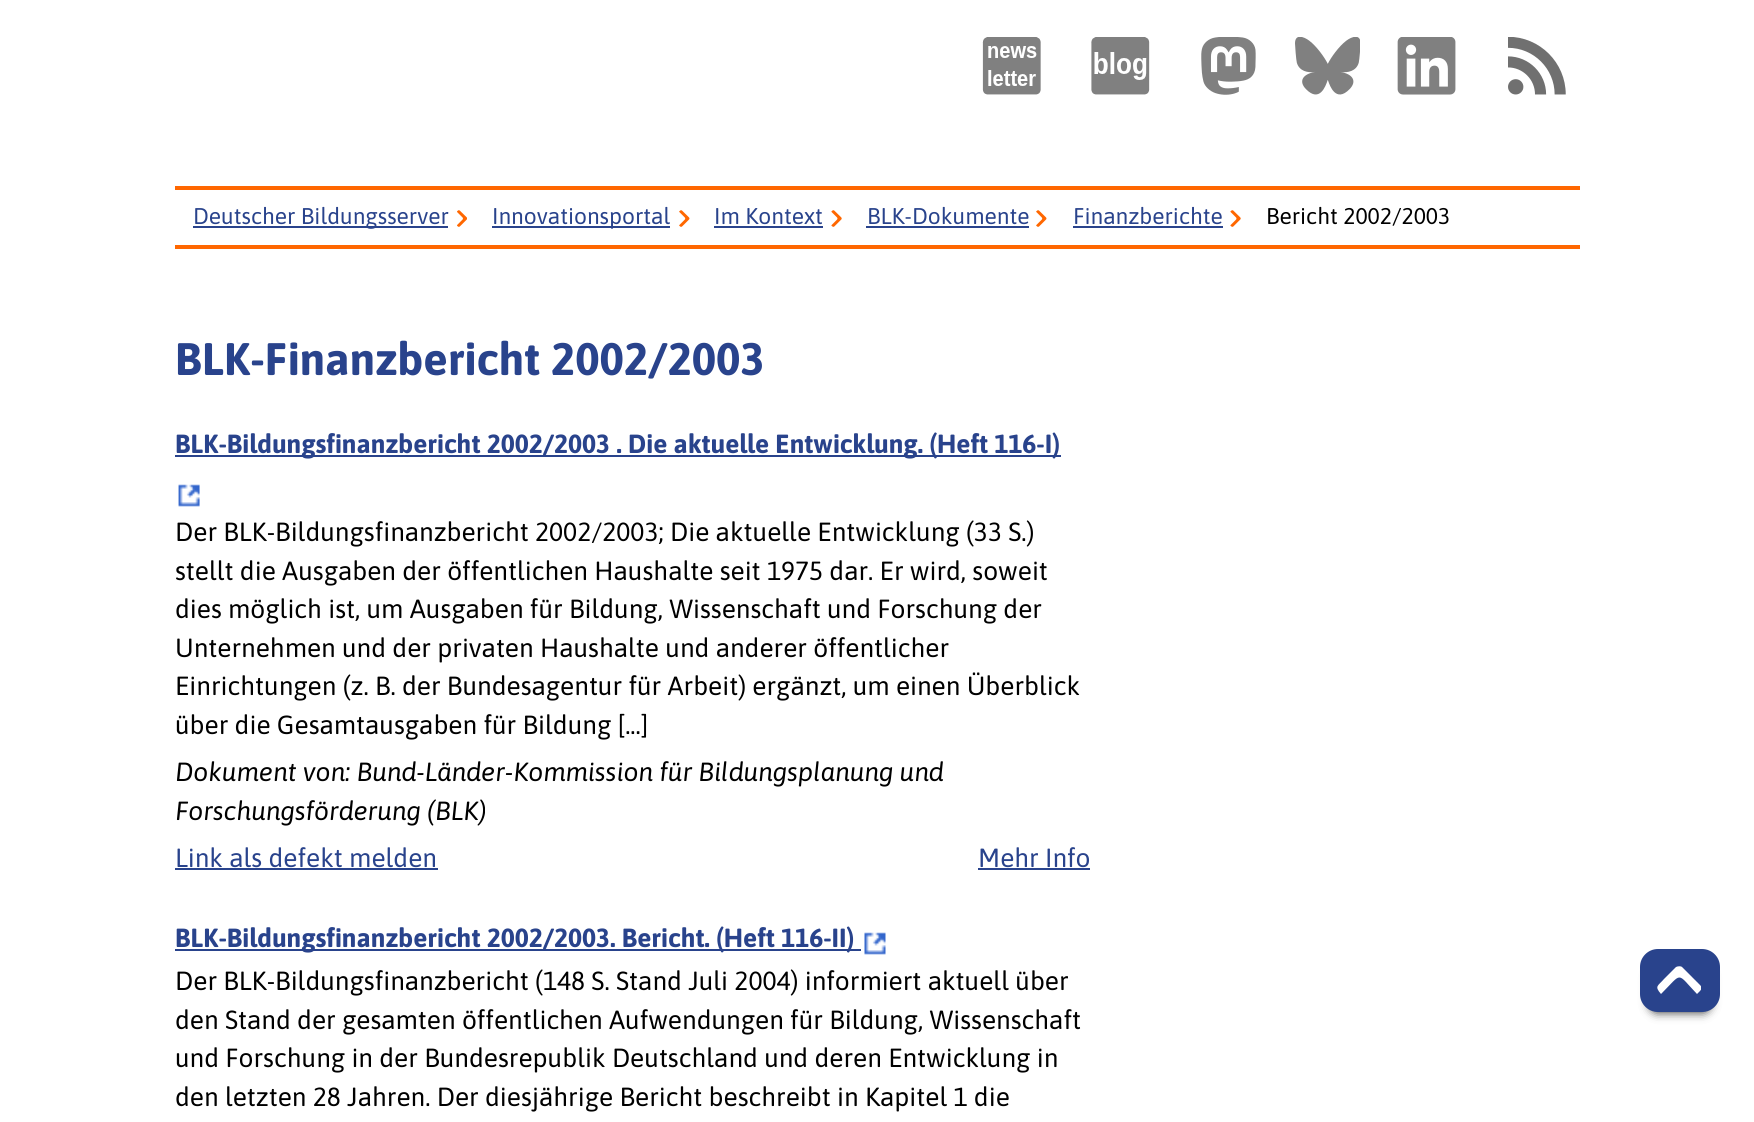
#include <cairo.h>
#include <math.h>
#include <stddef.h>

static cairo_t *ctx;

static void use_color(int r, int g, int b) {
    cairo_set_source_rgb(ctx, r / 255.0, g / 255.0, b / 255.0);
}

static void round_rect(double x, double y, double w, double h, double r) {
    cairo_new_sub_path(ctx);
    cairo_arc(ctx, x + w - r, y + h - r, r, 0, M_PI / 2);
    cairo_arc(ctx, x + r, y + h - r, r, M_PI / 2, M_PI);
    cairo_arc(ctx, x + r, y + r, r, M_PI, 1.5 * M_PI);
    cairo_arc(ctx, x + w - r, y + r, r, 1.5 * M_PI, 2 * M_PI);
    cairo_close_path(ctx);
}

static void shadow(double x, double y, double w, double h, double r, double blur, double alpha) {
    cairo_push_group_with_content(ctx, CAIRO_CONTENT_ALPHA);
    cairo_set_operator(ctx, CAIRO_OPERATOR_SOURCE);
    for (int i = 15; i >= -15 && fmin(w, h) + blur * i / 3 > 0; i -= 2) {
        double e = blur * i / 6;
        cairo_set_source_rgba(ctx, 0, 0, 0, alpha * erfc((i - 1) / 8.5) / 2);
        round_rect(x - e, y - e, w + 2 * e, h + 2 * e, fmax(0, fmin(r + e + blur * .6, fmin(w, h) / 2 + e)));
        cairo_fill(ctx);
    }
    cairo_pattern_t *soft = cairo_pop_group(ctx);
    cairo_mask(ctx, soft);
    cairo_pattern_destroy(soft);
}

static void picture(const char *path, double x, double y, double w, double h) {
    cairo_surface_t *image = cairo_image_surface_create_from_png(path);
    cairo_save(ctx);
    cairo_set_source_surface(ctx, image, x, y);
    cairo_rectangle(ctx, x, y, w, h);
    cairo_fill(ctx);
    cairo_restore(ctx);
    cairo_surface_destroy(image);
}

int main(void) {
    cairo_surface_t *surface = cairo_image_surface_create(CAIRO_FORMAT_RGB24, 1754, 1122);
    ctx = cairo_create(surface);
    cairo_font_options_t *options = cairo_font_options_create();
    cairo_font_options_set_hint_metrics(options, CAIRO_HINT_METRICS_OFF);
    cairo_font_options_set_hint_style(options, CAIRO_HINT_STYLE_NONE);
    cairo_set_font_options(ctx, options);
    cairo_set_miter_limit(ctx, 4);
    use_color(255, 255, 255);
    cairo_paint(ctx);
    picture("img1.png", 982, 37, 59, 58);
    picture("img2.png", 1091, 37, 59, 58);
    picture("img3.png", 1201, 37, 55, 58);
    picture("img4.png", 1295, 37, 65, 58);
    picture("img5.png", 1397, 37, 59, 58);
    picture("img6.png", 1508, 37, 58, 58);
    use_color(255, 103, 0);
    cairo_rectangle(ctx, 175, 186, 1405, 4);
    cairo_fill(ctx);
    cairo_rectangle(ctx, 175, 245, 1405, 4);
    cairo_fill(ctx);
    use_color(41, 67, 140);
    cairo_rectangle(ctx, 193, 226, 255, 2);
    cairo_fill(ctx);
    cairo_select_font_face(ctx, "Asap", CAIRO_FONT_SLANT_NORMAL, CAIRO_FONT_WEIGHT_NORMAL);
    cairo_set_font_size(ctx, 22.75);
    cairo_move_to(ctx, 193, 224);
    cairo_show_text(ctx, "Deutscher Bildungsserver");
    picture("img7.png", 457, 210, 10, 17);
    cairo_rectangle(ctx, 492, 226, 178, 2);
    cairo_fill(ctx);
    cairo_move_to(ctx, 492, 224);
    cairo_show_text(ctx, "Innovationsportal");
    picture("img8.png", 679, 210, 11, 17);
    cairo_move_to(ctx, 714, 224);
    cairo_show_text(ctx, "Im Kontext");
    cairo_rectangle(ctx, 714, 226, 109, 2);
    cairo_fill(ctx);
    picture("img9.png", 831, 210, 11, 17);
    cairo_move_to(ctx, 867, 224);
    cairo_show_text(ctx, "BLK-Dokumente");
    cairo_rectangle(ctx, 866, 226, 163, 2);
    cairo_fill(ctx);
    picture("img8.png", 1036, 210, 11, 17);
    cairo_move_to(ctx, 1073, 224);
    cairo_show_text(ctx, "Finanzberichte");
    cairo_rectangle(ctx, 1073, 226, 150, 2);
    cairo_fill(ctx);
    picture("img9.png", 1230, 210, 11, 17);
    use_color(0, 0, 0);
    cairo_move_to(ctx, 1266, 224);
    cairo_show_text(ctx, "Bericht 2002/2003");
    cairo_select_font_face(ctx, "Asap", CAIRO_FONT_SLANT_NORMAL, CAIRO_FONT_WEIGHT_BOLD);
    cairo_set_font_size(ctx, 45.5);
    use_color(41, 67, 140);
    cairo_move_to(ctx, 175, 375);
    cairo_show_text(ctx, "BLK-Finanzbericht 2002/2003");
    cairo_rectangle(ctx, 175, 455, 886, 2);
    cairo_fill(ctx);
    cairo_set_font_size(ctx, 26.25);
    cairo_move_to(ctx, 175, 453);
    cairo_show_text(ctx, "BLK-Bildungsfinanzbericht 2002/2003 . Die aktuelle Entwicklung. (Heft 116-I)");
    picture("img10.png", 178, 484, 22, 23);
    cairo_select_font_face(ctx, "Asap", CAIRO_FONT_SLANT_NORMAL, CAIRO_FONT_WEIGHT_NORMAL);
    use_color(0, 0, 0);
    cairo_move_to(ctx, 175, 541);
    cairo_show_text(ctx, "Der BLK-Bildungsfinanzbericht 2002/2003; Die aktuelle Entwicklung (33 S.)");
    cairo_move_to(ctx, 175, 580);
    cairo_show_text(ctx, "stellt die Ausgaben der öffentlichen Haushalte seit 1975 dar. Er wird, soweit");
    cairo_move_to(ctx, 175, 618);
    cairo_show_text(ctx, "dies möglich ist, um Ausgaben für Bildung, Wissenschaft und Forschung der");
    cairo_move_to(ctx, 175, 657);
    cairo_show_text(ctx, "Unternehmen und der privaten Haushalte und anderer öffentlicher");
    cairo_move_to(ctx, 175, 695);
    cairo_show_text(ctx, "Einrichtungen (z. B. der Bundesagentur für Arbeit) ergänzt, um einen Überblick");
    cairo_move_to(ctx, 175, 734);
    cairo_show_text(ctx, "über die Gesamtausgaben für Bildung [...]");
    cairo_select_font_face(ctx, "Asap", CAIRO_FONT_SLANT_ITALIC, CAIRO_FONT_WEIGHT_NORMAL);
    cairo_move_to(ctx, 175, 781);
    cairo_show_text(ctx, "Dokument von: Bund-Länder-Kommission für Bildungsplanung und");
    cairo_move_to(ctx, 175, 820);
    cairo_show_text(ctx, "Forschungsförderung (BLK)");
    cairo_select_font_face(ctx, "Asap", CAIRO_FONT_SLANT_NORMAL, CAIRO_FONT_WEIGHT_NORMAL);
    use_color(41, 67, 140);
    cairo_move_to(ctx, 175, 867);
    cairo_show_text(ctx, "Link als defekt melden");
    cairo_rectangle(ctx, 175, 868, 263, 2);
    cairo_fill(ctx);
    cairo_move_to(ctx, 978, 867);
    cairo_show_text(ctx, "Mehr Info");
    cairo_rectangle(ctx, 978, 868, 112, 2);
    cairo_fill(ctx);
    cairo_rectangle(ctx, 175, 949, 686, 2);
    cairo_fill(ctx);
    cairo_select_font_face(ctx, "Asap", CAIRO_FONT_SLANT_NORMAL, CAIRO_FONT_WEIGHT_BOLD);
    cairo_move_to(ctx, 175, 947);
    cairo_show_text(ctx, "BLK-Bildungsfinanzbericht 2002/2003. Bericht. (Heft 116-II)");
    picture("img11.png", 864, 932, 22, 23);
    cairo_select_font_face(ctx, "Asap", CAIRO_FONT_SLANT_NORMAL, CAIRO_FONT_WEIGHT_NORMAL);
    use_color(0, 0, 0);
    cairo_move_to(ctx, 175, 990);
    cairo_show_text(ctx, "Der BLK-Bildungsfinanzbericht (148 S. Stand Juli 2004) informiert aktuell über");
    cairo_move_to(ctx, 175, 1029);
    cairo_show_text(ctx, "den Stand der gesamten öffentlichen Aufwendungen für Bildung, Wissenschaft");
    cairo_move_to(ctx, 175, 1067);
    cairo_show_text(ctx, "und Forschung in der Bundesrepublik Deutschland und deren Entwicklung in");
    cairo_move_to(ctx, 175, 1106);
    cairo_show_text(ctx, "den letzten 28 Jahren. Der diesjährige Bericht beschreibt in Kapitel 1 die");
    use_color(34, 34, 34);
    shadow(1650, 970, 60, 42, 7, 5, 1);
    use_color(41, 67, 140);
    round_rect(1640, 949, 80, 63, 18);
    cairo_fill(ctx);
    cairo_save(ctx);
    cairo_rectangle(ctx, 1657, 966, 44, 28);
    cairo_clip(ctx);
    use_color(255, 255, 255);
    cairo_new_path(ctx);
    cairo_move_to(ctx, 1676, 967);
    cairo_line_to(ctx, 1664, 979);
    cairo_curve_to(ctx, 1658, 986, 1654, 986, 1661, 994);
    cairo_curve_to(ctx, 1683, 972, 1676, 972, 1697, 994);
    cairo_line_to(ctx, 1700, 991);
    cairo_curve_to(ctx, 1702, 989, 1702, 987, 1700, 985);
    cairo_line_to(ctx, 1682, 967);
    cairo_curve_to(ctx, 1681, 966, 1678, 966, 1676, 967);
    cairo_close_path(ctx);
    cairo_fill(ctx);
    cairo_restore(ctx);
    cairo_surface_write_to_png(surface, "result.png");
    cairo_font_options_destroy(options);
    cairo_destroy(ctx);
    cairo_surface_destroy(surface);
    return 0;
}
